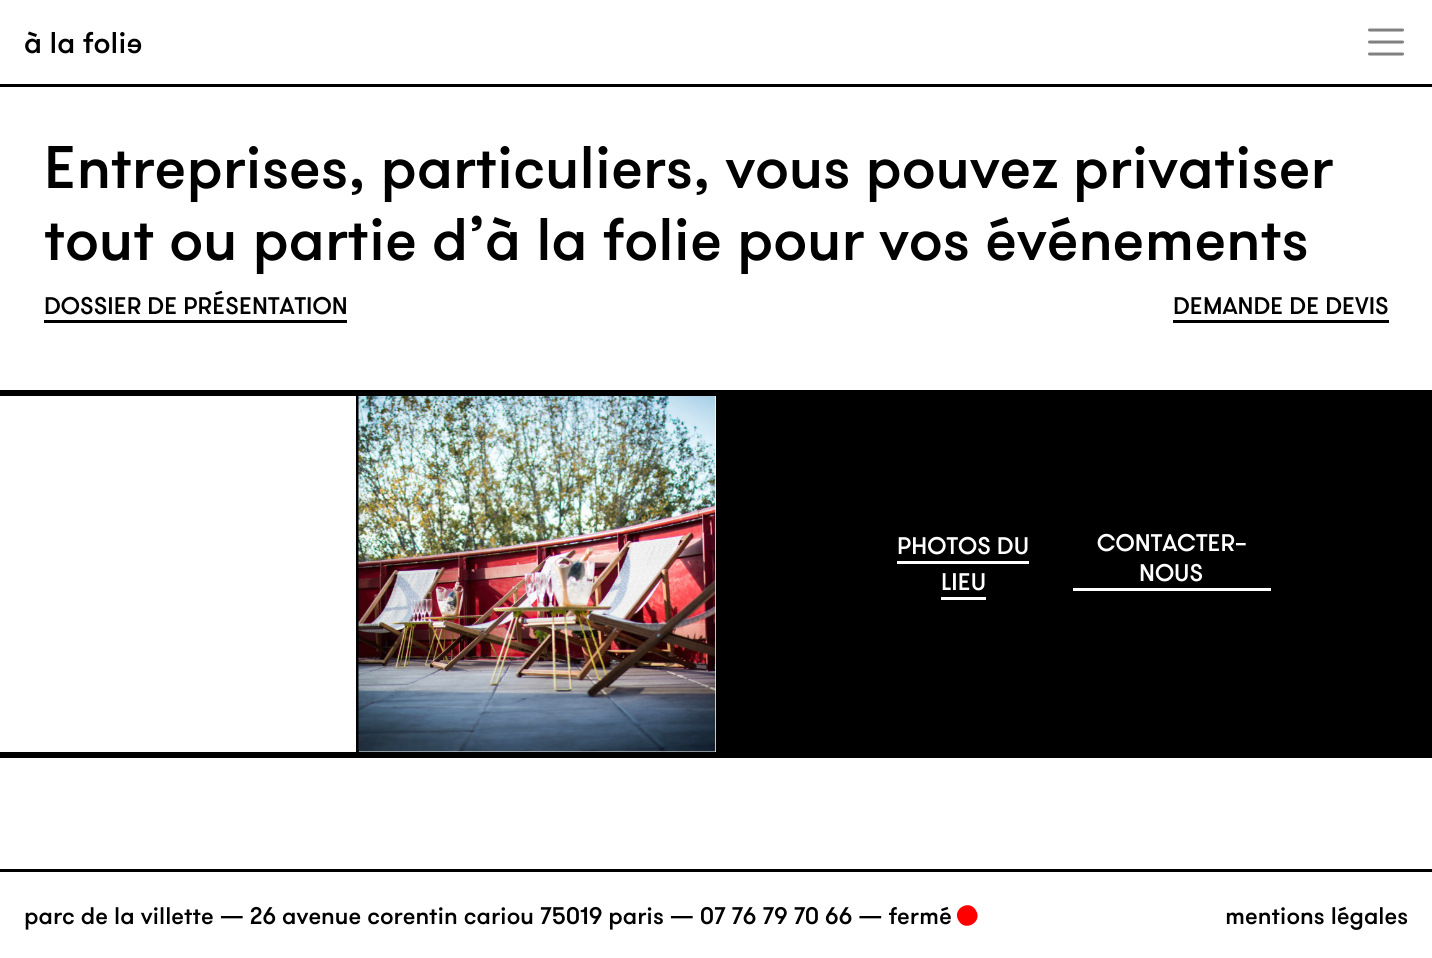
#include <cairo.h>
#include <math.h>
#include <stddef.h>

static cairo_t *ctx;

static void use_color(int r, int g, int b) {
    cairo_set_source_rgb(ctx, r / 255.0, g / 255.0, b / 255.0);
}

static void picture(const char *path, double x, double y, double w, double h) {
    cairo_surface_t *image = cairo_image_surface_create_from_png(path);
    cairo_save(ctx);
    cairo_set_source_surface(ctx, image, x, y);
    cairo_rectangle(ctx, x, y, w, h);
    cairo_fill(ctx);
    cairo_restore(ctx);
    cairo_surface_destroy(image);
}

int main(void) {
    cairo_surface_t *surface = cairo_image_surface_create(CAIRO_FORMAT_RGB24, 1432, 958);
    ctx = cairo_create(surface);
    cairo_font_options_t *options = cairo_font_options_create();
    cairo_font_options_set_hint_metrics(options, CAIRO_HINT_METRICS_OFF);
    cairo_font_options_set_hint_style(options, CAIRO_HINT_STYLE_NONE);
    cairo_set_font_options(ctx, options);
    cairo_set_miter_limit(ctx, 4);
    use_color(255, 255, 255);
    cairo_paint(ctx);
    use_color(0, 0, 0);
    cairo_rectangle(ctx, 0, 84, 1432, 3);
    cairo_fill(ctx);
    cairo_select_font_face(ctx, "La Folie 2 Medium", CAIRO_FONT_SLANT_NORMAL, CAIRO_FONT_WEIGHT_NORMAL);
    cairo_set_font_size(ctx, 30);
    cairo_move_to(ctx, 24, 53);
    cairo_show_text(ctx, "à la folie");
    cairo_new_path(ctx);
    cairo_move_to(ctx, 1369.5, 30);
    cairo_line_to(ctx, 1402.5, 30);
    cairo_move_to(ctx, 1369.5, 42);
    cairo_line_to(ctx, 1402.5, 42);
    cairo_move_to(ctx, 1369.5, 54);
    cairo_line_to(ctx, 1402.5, 54);
    use_color(128, 128, 128);
    cairo_set_line_width(ctx, 3);
    cairo_set_line_cap(ctx, CAIRO_LINE_CAP_ROUND);
    cairo_stroke(ctx);
    use_color(0, 0, 0);
    cairo_rectangle(ctx, 0, 390, 1432, 6);
    cairo_fill(ctx);
    cairo_select_font_face(ctx, "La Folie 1 Medium", CAIRO_FONT_SLANT_NORMAL, CAIRO_FONT_WEIGHT_NORMAL);
    cairo_set_font_size(ctx, 60);
    cairo_move_to(ctx, 44, 188);
    cairo_show_text(ctx, "Entreprises, particuliers, vous pouvez privatiser");
    cairo_move_to(ctx, 44, 260);
    cairo_show_text(ctx, "tout ou partie d’à la folie pour vos événements");
    cairo_set_font_size(ctx, 24);
    cairo_move_to(ctx, 44, 314);
    cairo_show_text(ctx, "DOSSIER DE PRÉSENTATION");
    cairo_rectangle(ctx, 44, 320, 303, 3);
    cairo_fill(ctx);
    cairo_rectangle(ctx, 1173, 320, 216, 3);
    cairo_fill(ctx);
    cairo_move_to(ctx, 1173, 314);
    cairo_show_text(ctx, "DEMANDE DE DEVIS");
    cairo_rectangle(ctx, 0, 755, 1432, 3);
    cairo_fill(ctx);
    cairo_rectangle(ctx, 716, 396, 716, 359);
    cairo_fill(ctx);
    cairo_rectangle(ctx, 356, 396, 1, 357);
    cairo_fill(ctx);
    cairo_rectangle(ctx, 0, 752, 716, 3);
    cairo_fill(ctx);
    cairo_rectangle(ctx, 357, 396, 2, 357);
    cairo_fill(ctx);
    picture("img1.png", 358, 396, 358, 356);
    use_color(255, 255, 255);
    cairo_move_to(ctx, 897, 554);
    cairo_show_text(ctx, "PHOTOS DU");
    cairo_rectangle(ctx, 897, 561, 132, 3);
    cairo_fill(ctx);
    cairo_move_to(ctx, 941, 590);
    cairo_show_text(ctx, "LIEU");
    cairo_rectangle(ctx, 941, 597, 45, 3);
    cairo_fill(ctx);
    cairo_rectangle(ctx, 1073, 588, 198, 3);
    cairo_fill(ctx);
    cairo_move_to(ctx, 1097, 551);
    cairo_show_text(ctx, "CONTACTER-");
    cairo_move_to(ctx, 1139, 581);
    cairo_show_text(ctx, "NOUS");
    use_color(0, 0, 0);
    cairo_rectangle(ctx, 0, 869, 1432, 3);
    cairo_fill(ctx);
    cairo_move_to(ctx, 24, 924);
    cairo_show_text(ctx, "parc de la villette — 26 avenue corentin cariou 75019 paris — 07 76 79 70 66 — fermé");
    use_color(255, 0, 0);
    cairo_new_path(ctx);
    cairo_move_to(ctx, 976, 910.5);
    cairo_curve_to(ctx, 983, 922, 965, 932.5, 958.5, 920.5);
    cairo_curve_to(ctx, 951.5, 909, 969.5, 898.5, 976, 910.5);
    cairo_close_path(ctx);
    cairo_fill(ctx);
    use_color(0, 0, 0);
    cairo_move_to(ctx, 1225, 924);
    cairo_show_text(ctx, "mentions légales");
    cairo_surface_write_to_png(surface, "result.png");
    cairo_font_options_destroy(options);
    cairo_destroy(ctx);
    cairo_surface_destroy(surface);
    return 0;
}
